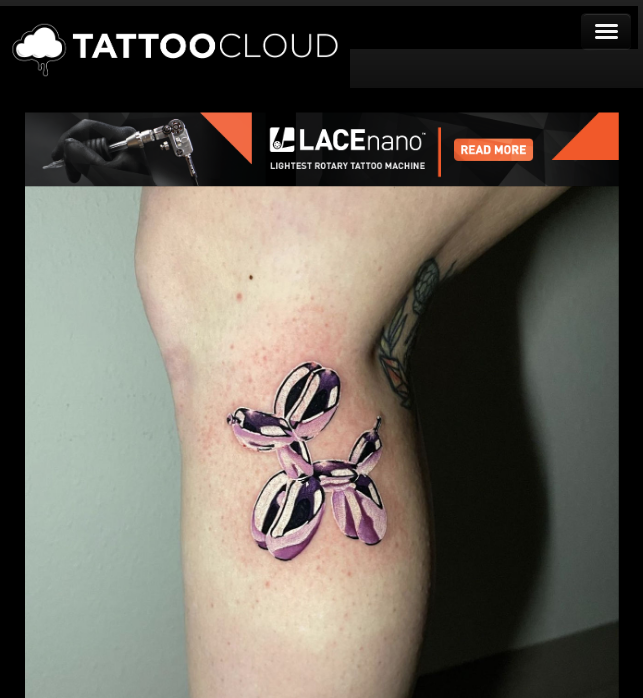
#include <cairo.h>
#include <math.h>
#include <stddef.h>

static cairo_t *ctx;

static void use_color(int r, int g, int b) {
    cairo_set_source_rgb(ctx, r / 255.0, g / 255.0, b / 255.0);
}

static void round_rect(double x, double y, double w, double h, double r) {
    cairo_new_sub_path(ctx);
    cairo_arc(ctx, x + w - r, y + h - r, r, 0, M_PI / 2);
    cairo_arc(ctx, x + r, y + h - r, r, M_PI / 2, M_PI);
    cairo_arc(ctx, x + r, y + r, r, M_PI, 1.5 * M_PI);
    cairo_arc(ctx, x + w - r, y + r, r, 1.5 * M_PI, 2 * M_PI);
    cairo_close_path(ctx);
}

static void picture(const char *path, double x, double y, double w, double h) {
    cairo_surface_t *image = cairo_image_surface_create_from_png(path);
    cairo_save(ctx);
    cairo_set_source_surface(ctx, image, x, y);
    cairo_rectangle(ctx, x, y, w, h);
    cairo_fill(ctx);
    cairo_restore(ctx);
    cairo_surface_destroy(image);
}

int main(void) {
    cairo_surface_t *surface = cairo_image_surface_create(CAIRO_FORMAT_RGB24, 643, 698);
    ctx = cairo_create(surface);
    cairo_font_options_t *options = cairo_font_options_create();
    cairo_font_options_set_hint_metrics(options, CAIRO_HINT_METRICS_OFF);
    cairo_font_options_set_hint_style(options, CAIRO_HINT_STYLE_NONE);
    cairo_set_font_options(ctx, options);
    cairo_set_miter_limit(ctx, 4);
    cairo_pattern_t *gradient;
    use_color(0, 0, 0);
    cairo_paint(ctx);
    gradient = cairo_pattern_create_linear(322, 0, 322, 88);
    cairo_pattern_add_color_stop_rgba(gradient, 0, 0.133, 0.133, 0.133, 1);
    cairo_pattern_add_color_stop_rgba(gradient, 1, 0.067, 0.067, 0.067, 1);
    cairo_set_source(ctx, gradient);
    cairo_pattern_destroy(gradient);
    cairo_rectangle(ctx, 0, 0, 643, 88);
    cairo_fill(ctx);
    use_color(0, 0, 0);
    cairo_rectangle(ctx, 350, 6, 288, 43);
    cairo_fill(ctx);
    cairo_rectangle(ctx, 0, 6, 350, 82);
    cairo_fill(ctx);
    picture("img1.png", 12, 23, 326, 54);
    cairo_set_source_rgba(ctx, 1, 1, 1, 0.07);
    cairo_new_path(ctx);
    cairo_move_to(ctx, 581, 17);
    cairo_line_to(ctx, 581, 36);
    cairo_curve_to(ctx, 581, 53, 582, 50, 599, 50);
    cairo_line_to(ctx, 626, 50);
    cairo_curve_to(ctx, 629, 50, 631, 48, 631, 45);
    cairo_curve_to(ctx, 630, 47, 628, 49, 626, 49);
    cairo_line_to(ctx, 586, 49);
    cairo_curve_to(ctx, 583, 49, 581, 47, 581, 44);
    cairo_close_path(ctx);
    cairo_fill(ctx);
    use_color(14, 14, 14);
    round_rect(581, 13, 50, 36, 5);
    cairo_fill(ctx);
    cairo_save(ctx);
    round_rect(581, 13, 50, 36, 5);
    cairo_clip(ctx);
    gradient = cairo_pattern_create_linear(606, 14, 606, 48);
    cairo_pattern_add_color_stop_rgba(gradient, 0, 0.082, 0.082, 0.082, 1);
    cairo_pattern_add_color_stop_rgba(gradient, 1, 0.016, 0.016, 0.016, 1);
    cairo_set_source(ctx, gradient);
    cairo_pattern_destroy(gradient);
    cairo_rectangle(ctx, 581, 14, 50, 34);
    cairo_fill(ctx);
    cairo_restore(ctx);
    use_color(44, 44, 44);
    cairo_new_path(ctx);
    cairo_move_to(ctx, 586, 15);
    cairo_line_to(ctx, 626, 15);
    cairo_curve_to(ctx, 628, 15, 630, 17, 630, 19);
    cairo_line_to(ctx, 630, 18);
    cairo_curve_to(ctx, 630, 16, 628, 14, 626, 14);
    cairo_line_to(ctx, 587, 14);
    cairo_curve_to(ctx, 586, 14, 584, 15, 584, 16);
    cairo_close_path(ctx);
    cairo_fill(ctx);
    use_color(11, 11, 11);
    cairo_new_path(ctx);
    cairo_move_to(ctx, 595, 25.5);
    cairo_curve_to(ctx, 593.5, 28.5, 599.5, 28, 600, 28);
    cairo_line_to(ctx, 613, 28);
    cairo_curve_to(ctx, 614, 28, 617.5, 29, 618, 27);
    cairo_curve_to(ctx, 618, 26.5, 618, 25.5, 617.5, 25.5);
    cairo_line_to(ctx, 616.5, 26);
    cairo_line_to(ctx, 596, 26);
    cairo_close_path(ctx);
    cairo_fill(ctx);
    use_color(245, 245, 245);
    round_rect(595, 24, 23, 3, 1.5);
    cairo_fill(ctx);
    use_color(8, 8, 8);
    cairo_new_path(ctx);
    cairo_move_to(ctx, 595, 32);
    cairo_curve_to(ctx, 594, 34.5, 599, 34, 600, 34);
    cairo_line_to(ctx, 613, 34);
    cairo_curve_to(ctx, 614, 34, 617.5, 35, 618, 33);
    cairo_curve_to(ctx, 618, 32.5, 618, 31.5, 617.5, 31.5);
    cairo_curve_to(ctx, 617.5, 32, 617, 32.5, 616, 32.5);
    cairo_line_to(ctx, 596, 32.5);
    cairo_curve_to(ctx, 596, 32.5, 595.5, 32, 595, 32);
    cairo_close_path(ctx);
    cairo_fill(ctx);
    use_color(245, 245, 245);
    round_rect(595, 30, 23, 3, 1.5);
    cairo_fill(ctx);
    round_rect(595, 36, 23, 3, 1.5);
    cairo_fill(ctx);
    picture("img2.png", 25, 112, 594, 75);
    picture("img3.png", 25, 186, 594, 512);
    cairo_surface_write_to_png(surface, "result.png");
    cairo_font_options_destroy(options);
    cairo_destroy(ctx);
    cairo_surface_destroy(surface);
    return 0;
}
